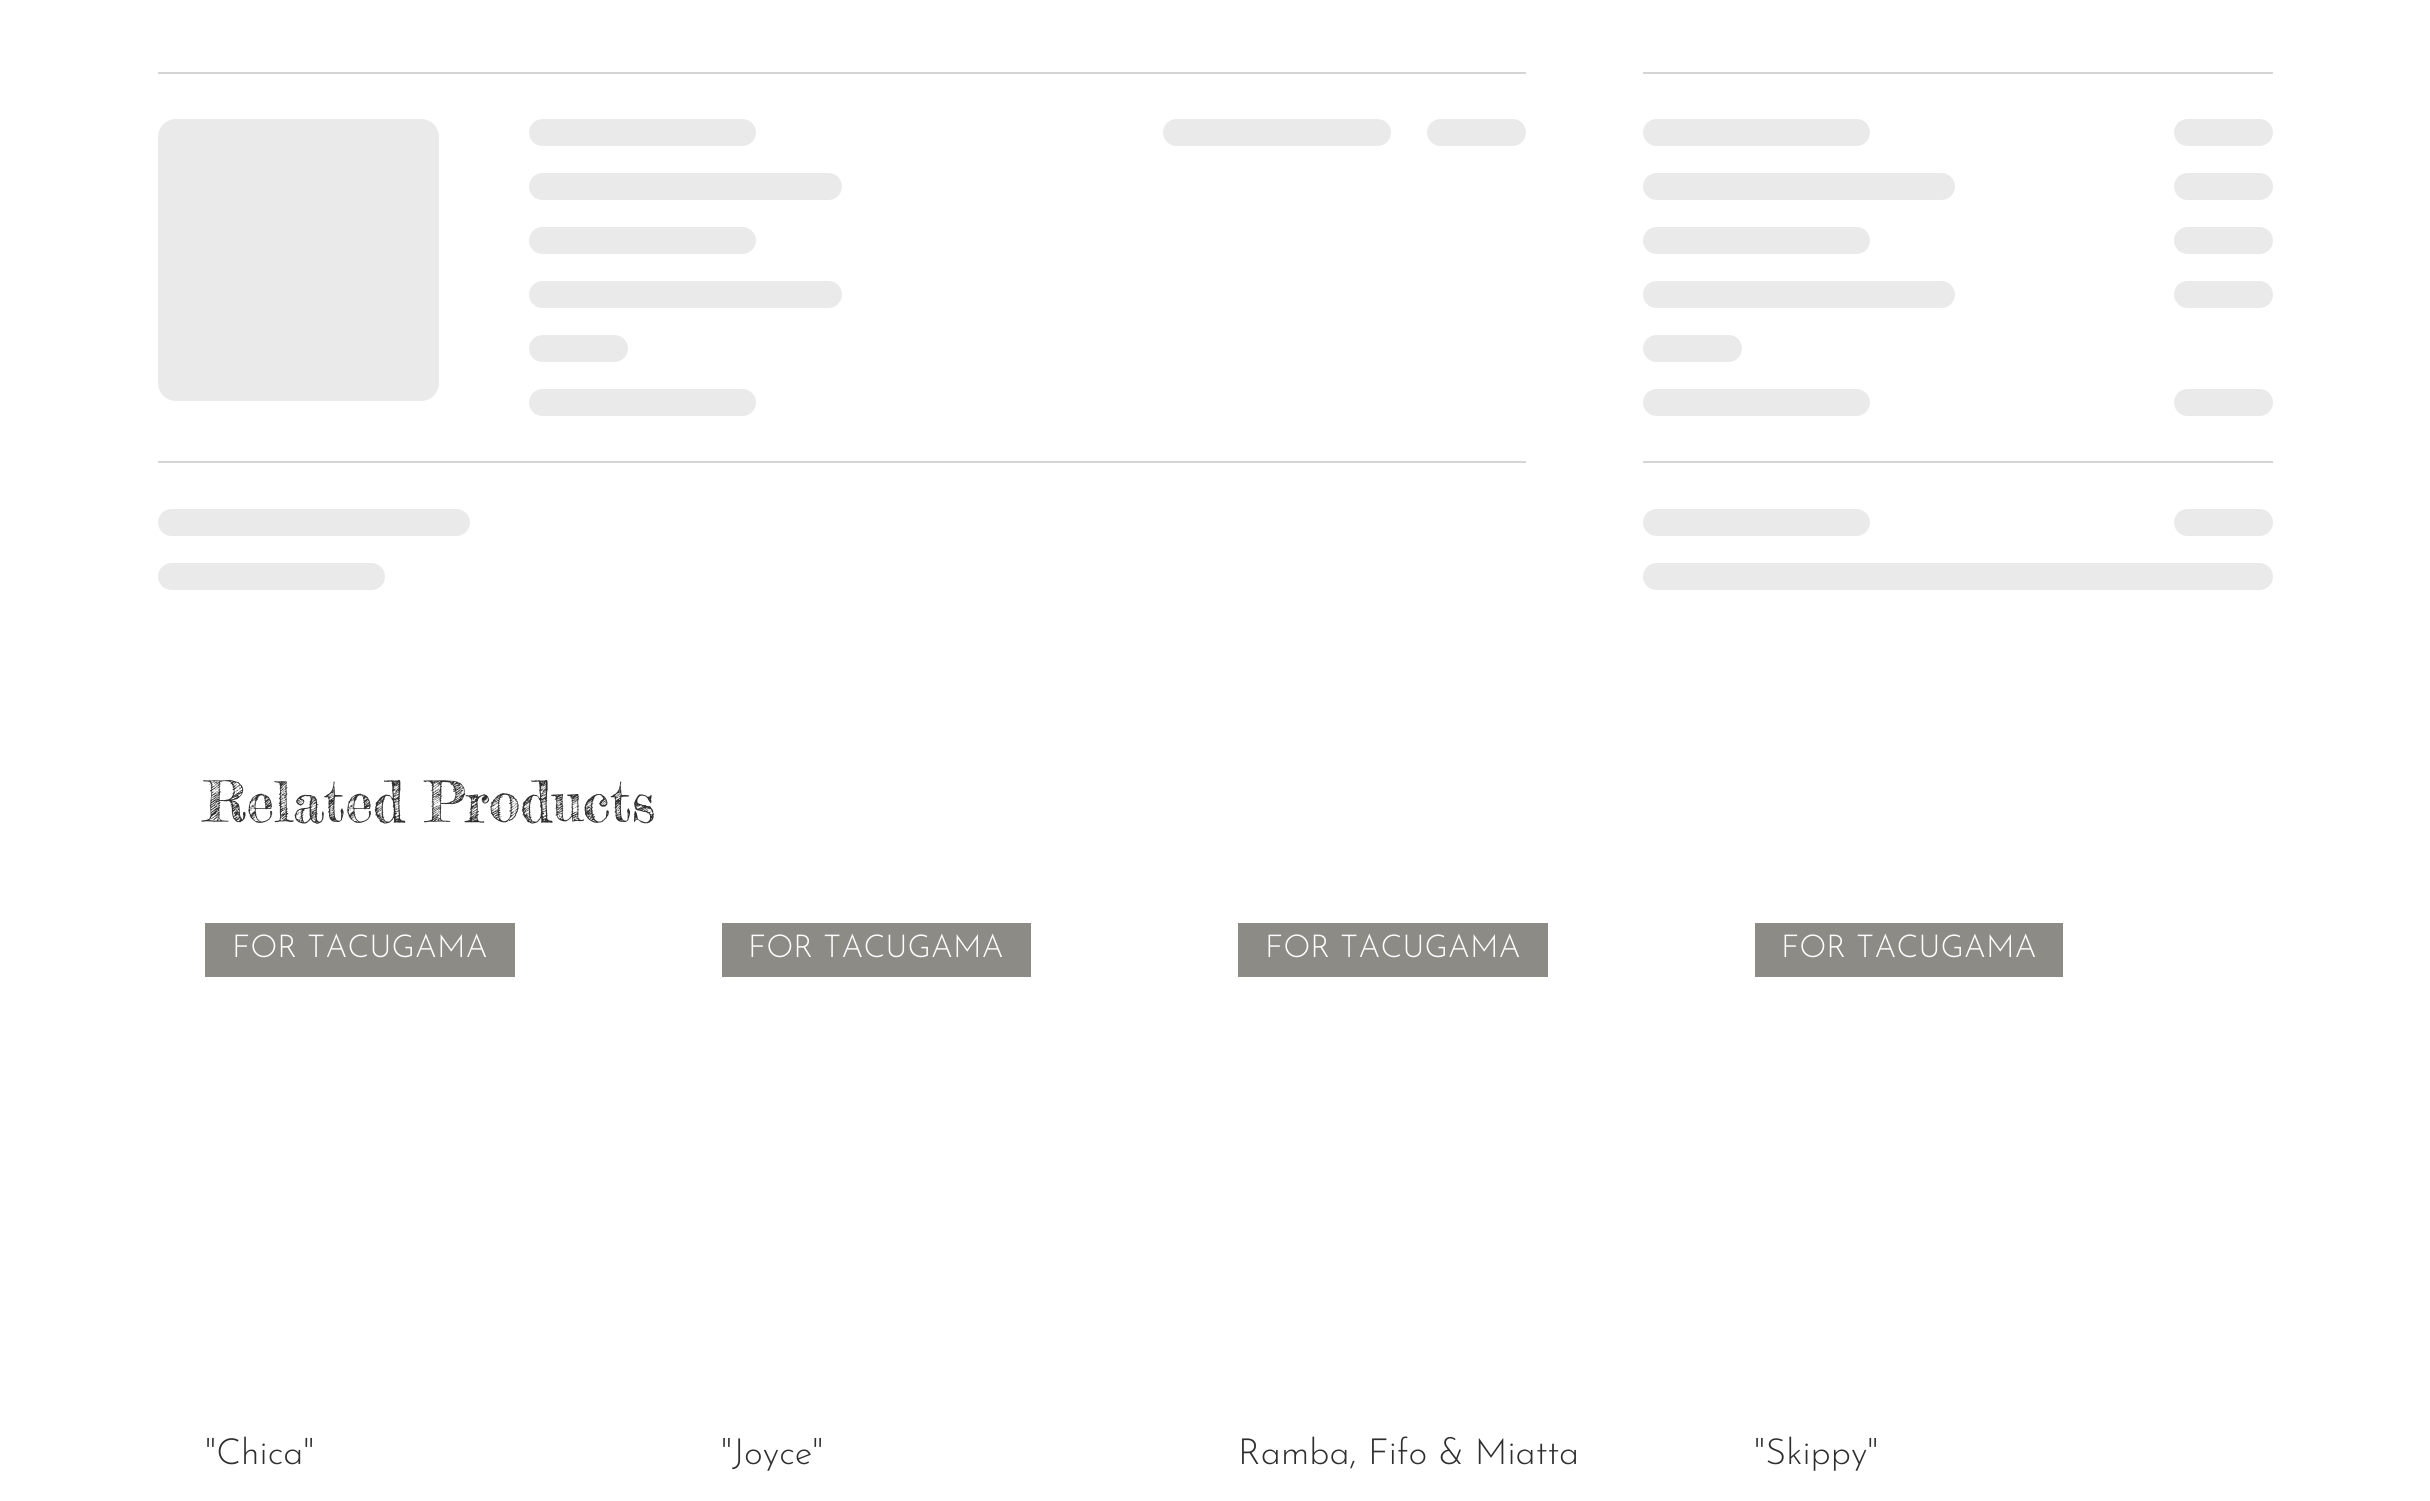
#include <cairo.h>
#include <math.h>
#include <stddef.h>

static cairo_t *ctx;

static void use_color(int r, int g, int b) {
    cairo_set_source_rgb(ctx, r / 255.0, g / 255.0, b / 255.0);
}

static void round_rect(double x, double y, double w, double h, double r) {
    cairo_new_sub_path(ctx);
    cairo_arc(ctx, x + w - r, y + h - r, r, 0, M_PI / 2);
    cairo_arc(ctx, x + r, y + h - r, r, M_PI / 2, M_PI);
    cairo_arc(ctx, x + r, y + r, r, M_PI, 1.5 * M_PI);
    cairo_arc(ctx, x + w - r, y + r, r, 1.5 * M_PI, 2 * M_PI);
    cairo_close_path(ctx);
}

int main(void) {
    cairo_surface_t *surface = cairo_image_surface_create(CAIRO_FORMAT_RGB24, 2430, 1501);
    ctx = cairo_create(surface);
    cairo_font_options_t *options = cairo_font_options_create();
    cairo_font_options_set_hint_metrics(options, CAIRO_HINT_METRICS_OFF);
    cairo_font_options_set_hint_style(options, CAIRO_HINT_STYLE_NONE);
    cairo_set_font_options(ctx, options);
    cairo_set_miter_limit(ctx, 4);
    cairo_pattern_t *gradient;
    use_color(255, 255, 255);
    cairo_paint(ctx);
    use_color(213, 213, 213);
    cairo_rectangle(ctx, 158, 72, 1368, 2);
    cairo_fill(ctx);
    gradient = cairo_pattern_create_linear(158, 260, 1283, 260);
    cairo_pattern_add_color_stop_rgba(gradient, 0.25, 0.918, 0.918, 0.918, 1);
    cairo_pattern_add_color_stop_rgba(gradient, 0.37, 0.839, 0.835, 0.835, 1);
    cairo_pattern_add_color_stop_rgba(gradient, 0.63, 0.918, 0.918, 0.918, 1);
    cairo_set_source(ctx, gradient);
    cairo_pattern_destroy(gradient);
    round_rect(158, 119, 281, 282, 18);
    cairo_fill(ctx);
    gradient = cairo_pattern_create_linear(529, 133, 1438, 133);
    cairo_pattern_add_color_stop_rgba(gradient, 0.25, 0.918, 0.918, 0.918, 1);
    cairo_pattern_add_color_stop_rgba(gradient, 0.37, 0.835, 0.835, 0.835, 1);
    cairo_pattern_add_color_stop_rgba(gradient, 0.63, 0.918, 0.918, 0.918, 1);
    cairo_set_source(ctx, gradient);
    cairo_pattern_destroy(gradient);
    round_rect(529, 119, 227, 27, 13.5);
    cairo_fill(ctx);
    gradient = cairo_pattern_create_linear(529, 187, 1780, 187);
    cairo_pattern_add_color_stop_rgba(gradient, 0.25, 0.918, 0.918, 0.918, 1);
    cairo_pattern_add_color_stop_rgba(gradient, 0.37, 0.835, 0.835, 0.835, 1);
    cairo_pattern_add_color_stop_rgba(gradient, 0.63, 0.918, 0.918, 0.918, 1);
    cairo_set_source(ctx, gradient);
    cairo_pattern_destroy(gradient);
    round_rect(529, 173, 313, 27, 13.5);
    cairo_fill(ctx);
    gradient = cairo_pattern_create_linear(529, 241, 1438, 241);
    cairo_pattern_add_color_stop_rgba(gradient, 0.25, 0.918, 0.918, 0.918, 1);
    cairo_pattern_add_color_stop_rgba(gradient, 0.37, 0.835, 0.835, 0.835, 1);
    cairo_pattern_add_color_stop_rgba(gradient, 0.63, 0.918, 0.918, 0.918, 1);
    cairo_set_source(ctx, gradient);
    cairo_pattern_destroy(gradient);
    round_rect(529, 227, 227, 27, 13.5);
    cairo_fill(ctx);
    gradient = cairo_pattern_create_linear(529, 295, 1780, 295);
    cairo_pattern_add_color_stop_rgba(gradient, 0.25, 0.918, 0.918, 0.918, 1);
    cairo_pattern_add_color_stop_rgba(gradient, 0.37, 0.835, 0.835, 0.835, 1);
    cairo_pattern_add_color_stop_rgba(gradient, 0.63, 0.918, 0.918, 0.918, 1);
    cairo_set_source(ctx, gradient);
    cairo_pattern_destroy(gradient);
    round_rect(529, 281, 313, 27, 13.5);
    cairo_fill(ctx);
    gradient = cairo_pattern_create_linear(529, 349, 925, 349);
    cairo_pattern_add_color_stop_rgba(gradient, 0.25, 0.918, 0.918, 0.918, 1);
    cairo_pattern_add_color_stop_rgba(gradient, 0.37, 0.835, 0.835, 0.835, 1);
    cairo_pattern_add_color_stop_rgba(gradient, 0.63, 0.918, 0.918, 0.918, 1);
    cairo_set_source(ctx, gradient);
    cairo_pattern_destroy(gradient);
    round_rect(529, 335, 99, 27, 13.5);
    cairo_fill(ctx);
    gradient = cairo_pattern_create_linear(529, 403, 1438, 403);
    cairo_pattern_add_color_stop_rgba(gradient, 0.25, 0.918, 0.918, 0.918, 1);
    cairo_pattern_add_color_stop_rgba(gradient, 0.37, 0.835, 0.835, 0.835, 1);
    cairo_pattern_add_color_stop_rgba(gradient, 0.63, 0.918, 0.918, 0.918, 1);
    cairo_set_source(ctx, gradient);
    cairo_pattern_destroy(gradient);
    round_rect(529, 389, 227, 27, 13.5);
    cairo_fill(ctx);
    gradient = cairo_pattern_create_linear(1163, 133, 2072, 133);
    cairo_pattern_add_color_stop_rgba(gradient, 0.25, 0.918, 0.918, 0.918, 1);
    cairo_pattern_add_color_stop_rgba(gradient, 0.37, 0.835, 0.835, 0.835, 1);
    cairo_pattern_add_color_stop_rgba(gradient, 0.63, 0.918, 0.918, 0.918, 1);
    cairo_set_source(ctx, gradient);
    cairo_pattern_destroy(gradient);
    round_rect(1163, 119, 228, 27, 13.5);
    cairo_fill(ctx);
    gradient = cairo_pattern_create_linear(1427, 133, 1823, 133);
    cairo_pattern_add_color_stop_rgba(gradient, 0.25, 0.918, 0.918, 0.918, 1);
    cairo_pattern_add_color_stop_rgba(gradient, 0.37, 0.835, 0.835, 0.835, 1);
    cairo_pattern_add_color_stop_rgba(gradient, 0.63, 0.918, 0.918, 0.918, 1);
    cairo_set_source(ctx, gradient);
    cairo_pattern_destroy(gradient);
    round_rect(1427, 119, 99, 27, 13.5);
    cairo_fill(ctx);
    use_color(213, 213, 213);
    cairo_rectangle(ctx, 158, 461, 1368, 2);
    cairo_fill(ctx);
    gradient = cairo_pattern_create_linear(158, 522, 1409, 522);
    cairo_pattern_add_color_stop_rgba(gradient, 0.25, 0.918, 0.918, 0.918, 1);
    cairo_pattern_add_color_stop_rgba(gradient, 0.37, 0.835, 0.835, 0.835, 1);
    cairo_pattern_add_color_stop_rgba(gradient, 0.63, 0.918, 0.918, 0.918, 1);
    cairo_set_source(ctx, gradient);
    cairo_pattern_destroy(gradient);
    round_rect(158, 509, 312, 27, 13.5);
    cairo_fill(ctx);
    gradient = cairo_pattern_create_linear(158, 576, 1067, 576);
    cairo_pattern_add_color_stop_rgba(gradient, 0.25, 0.918, 0.918, 0.918, 1);
    cairo_pattern_add_color_stop_rgba(gradient, 0.37, 0.835, 0.835, 0.835, 1);
    cairo_pattern_add_color_stop_rgba(gradient, 0.63, 0.918, 0.918, 0.918, 1);
    cairo_set_source(ctx, gradient);
    cairo_pattern_destroy(gradient);
    round_rect(158, 563, 227, 27, 13.5);
    cairo_fill(ctx);
    use_color(213, 213, 213);
    cairo_rectangle(ctx, 1643, 72, 630, 2);
    cairo_fill(ctx);
    gradient = cairo_pattern_create_linear(1643, 133, 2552, 133);
    cairo_pattern_add_color_stop_rgba(gradient, 0.25, 0.918, 0.918, 0.918, 1);
    cairo_pattern_add_color_stop_rgba(gradient, 0.37, 0.835, 0.835, 0.835, 1);
    cairo_pattern_add_color_stop_rgba(gradient, 0.63, 0.918, 0.918, 0.918, 1);
    cairo_set_source(ctx, gradient);
    cairo_pattern_destroy(gradient);
    round_rect(1643, 119, 227, 27, 13.5);
    cairo_fill(ctx);
    gradient = cairo_pattern_create_linear(2174, 133, 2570, 133);
    cairo_pattern_add_color_stop_rgba(gradient, 0.25, 0.918, 0.918, 0.918, 1);
    cairo_pattern_add_color_stop_rgba(gradient, 0.37, 0.835, 0.835, 0.835, 1);
    cairo_pattern_add_color_stop_rgba(gradient, 0.63, 0.918, 0.918, 0.918, 1);
    cairo_set_source(ctx, gradient);
    cairo_pattern_destroy(gradient);
    round_rect(2174, 119, 99, 27, 13.5);
    cairo_fill(ctx);
    gradient = cairo_pattern_create_linear(1643, 187, 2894, 187);
    cairo_pattern_add_color_stop_rgba(gradient, 0.25, 0.918, 0.918, 0.918, 1);
    cairo_pattern_add_color_stop_rgba(gradient, 0.37, 0.835, 0.835, 0.835, 1);
    cairo_pattern_add_color_stop_rgba(gradient, 0.63, 0.918, 0.918, 0.918, 1);
    cairo_set_source(ctx, gradient);
    cairo_pattern_destroy(gradient);
    round_rect(1643, 173, 312, 27, 13.5);
    cairo_fill(ctx);
    gradient = cairo_pattern_create_linear(2174, 187, 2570, 187);
    cairo_pattern_add_color_stop_rgba(gradient, 0.25, 0.918, 0.918, 0.918, 1);
    cairo_pattern_add_color_stop_rgba(gradient, 0.37, 0.835, 0.835, 0.835, 1);
    cairo_pattern_add_color_stop_rgba(gradient, 0.63, 0.918, 0.918, 0.918, 1);
    cairo_set_source(ctx, gradient);
    cairo_pattern_destroy(gradient);
    round_rect(2174, 173, 99, 27, 13.5);
    cairo_fill(ctx);
    gradient = cairo_pattern_create_linear(1643, 241, 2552, 241);
    cairo_pattern_add_color_stop_rgba(gradient, 0.25, 0.918, 0.918, 0.918, 1);
    cairo_pattern_add_color_stop_rgba(gradient, 0.37, 0.835, 0.835, 0.835, 1);
    cairo_pattern_add_color_stop_rgba(gradient, 0.63, 0.918, 0.918, 0.918, 1);
    cairo_set_source(ctx, gradient);
    cairo_pattern_destroy(gradient);
    round_rect(1643, 227, 227, 27, 13.5);
    cairo_fill(ctx);
    gradient = cairo_pattern_create_linear(2174, 241, 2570, 241);
    cairo_pattern_add_color_stop_rgba(gradient, 0.25, 0.918, 0.918, 0.918, 1);
    cairo_pattern_add_color_stop_rgba(gradient, 0.37, 0.835, 0.835, 0.835, 1);
    cairo_pattern_add_color_stop_rgba(gradient, 0.63, 0.918, 0.918, 0.918, 1);
    cairo_set_source(ctx, gradient);
    cairo_pattern_destroy(gradient);
    round_rect(2174, 227, 99, 27, 13.5);
    cairo_fill(ctx);
    gradient = cairo_pattern_create_linear(1643, 295, 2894, 295);
    cairo_pattern_add_color_stop_rgba(gradient, 0.25, 0.918, 0.918, 0.918, 1);
    cairo_pattern_add_color_stop_rgba(gradient, 0.37, 0.835, 0.835, 0.835, 1);
    cairo_pattern_add_color_stop_rgba(gradient, 0.63, 0.918, 0.918, 0.918, 1);
    cairo_set_source(ctx, gradient);
    cairo_pattern_destroy(gradient);
    round_rect(1643, 281, 312, 27, 13.5);
    cairo_fill(ctx);
    gradient = cairo_pattern_create_linear(2174, 295, 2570, 295);
    cairo_pattern_add_color_stop_rgba(gradient, 0.25, 0.918, 0.918, 0.918, 1);
    cairo_pattern_add_color_stop_rgba(gradient, 0.37, 0.835, 0.835, 0.835, 1);
    cairo_pattern_add_color_stop_rgba(gradient, 0.63, 0.918, 0.918, 0.918, 1);
    cairo_set_source(ctx, gradient);
    cairo_pattern_destroy(gradient);
    round_rect(2174, 281, 99, 27, 13.5);
    cairo_fill(ctx);
    gradient = cairo_pattern_create_linear(1643, 349, 2039, 349);
    cairo_pattern_add_color_stop_rgba(gradient, 0.25, 0.918, 0.918, 0.918, 1);
    cairo_pattern_add_color_stop_rgba(gradient, 0.37, 0.835, 0.835, 0.835, 1);
    cairo_pattern_add_color_stop_rgba(gradient, 0.63, 0.918, 0.918, 0.918, 1);
    cairo_set_source(ctx, gradient);
    cairo_pattern_destroy(gradient);
    round_rect(1643, 335, 99, 27, 13.5);
    cairo_fill(ctx);
    gradient = cairo_pattern_create_linear(1643, 403, 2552, 403);
    cairo_pattern_add_color_stop_rgba(gradient, 0.25, 0.918, 0.918, 0.918, 1);
    cairo_pattern_add_color_stop_rgba(gradient, 0.37, 0.835, 0.835, 0.835, 1);
    cairo_pattern_add_color_stop_rgba(gradient, 0.63, 0.918, 0.918, 0.918, 1);
    cairo_set_source(ctx, gradient);
    cairo_pattern_destroy(gradient);
    round_rect(1643, 389, 227, 27, 13.5);
    cairo_fill(ctx);
    gradient = cairo_pattern_create_linear(2174, 403, 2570, 403);
    cairo_pattern_add_color_stop_rgba(gradient, 0.25, 0.918, 0.918, 0.918, 1);
    cairo_pattern_add_color_stop_rgba(gradient, 0.37, 0.835, 0.835, 0.835, 1);
    cairo_pattern_add_color_stop_rgba(gradient, 0.63, 0.918, 0.918, 0.918, 1);
    cairo_set_source(ctx, gradient);
    cairo_pattern_destroy(gradient);
    round_rect(2174, 389, 99, 27, 13.5);
    cairo_fill(ctx);
    use_color(213, 213, 213);
    cairo_rectangle(ctx, 1643, 461, 630, 2);
    cairo_fill(ctx);
    gradient = cairo_pattern_create_linear(1643, 522, 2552, 522);
    cairo_pattern_add_color_stop_rgba(gradient, 0.25, 0.918, 0.918, 0.918, 1);
    cairo_pattern_add_color_stop_rgba(gradient, 0.37, 0.835, 0.835, 0.835, 1);
    cairo_pattern_add_color_stop_rgba(gradient, 0.63, 0.918, 0.918, 0.918, 1);
    cairo_set_source(ctx, gradient);
    cairo_pattern_destroy(gradient);
    round_rect(1643, 509, 227, 27, 13.5);
    cairo_fill(ctx);
    gradient = cairo_pattern_create_linear(2174, 522, 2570, 522);
    cairo_pattern_add_color_stop_rgba(gradient, 0.25, 0.918, 0.918, 0.918, 1);
    cairo_pattern_add_color_stop_rgba(gradient, 0.37, 0.835, 0.835, 0.835, 1);
    cairo_pattern_add_color_stop_rgba(gradient, 0.63, 0.918, 0.918, 0.918, 1);
    cairo_set_source(ctx, gradient);
    cairo_pattern_destroy(gradient);
    round_rect(2174, 509, 99, 27, 13.5);
    cairo_fill(ctx);
    gradient = cairo_pattern_create_linear(1643, 576, 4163, 576);
    cairo_pattern_add_color_stop_rgba(gradient, 0.25, 0.918, 0.918, 0.918, 1);
    cairo_pattern_add_color_stop_rgba(gradient, 0.37, 0.835, 0.835, 0.835, 1);
    cairo_pattern_add_color_stop_rgba(gradient, 0.63, 0.918, 0.918, 0.918, 1);
    cairo_set_source(ctx, gradient);
    cairo_pattern_destroy(gradient);
    round_rect(1643, 563, 630, 27, 13.5);
    cairo_fill(ctx);
    cairo_select_font_face(ctx, "Fredericka the Great", CAIRO_FONT_SLANT_NORMAL, CAIRO_FONT_WEIGHT_NORMAL);
    cairo_set_font_size(ctx, 56.25);
    use_color(47, 46, 46);
    cairo_move_to(ctx, 203, 822);
    cairo_show_text(ctx, "Related Products");
    use_color(140, 139, 134);
    cairo_rectangle(ctx, 205, 923, 310, 54);
    cairo_fill(ctx);
    cairo_select_font_face(ctx, "Josefin Sans Thin", CAIRO_FONT_SLANT_NORMAL, CAIRO_FONT_WEIGHT_NORMAL);
    cairo_set_font_size(ctx, 31.5);
    use_color(255, 255, 255);
    cairo_move_to(ctx, 232, 957);
    cairo_show_text(ctx, "FOR TACUGAMA");
    cairo_set_font_size(ctx, 36);
    use_color(47, 46, 46);
    cairo_move_to(ctx, 205, 1464);
    cairo_show_text(ctx, "\"Chica\"");
    use_color(140, 139, 134);
    cairo_rectangle(ctx, 722, 923, 309, 54);
    cairo_fill(ctx);
    cairo_set_font_size(ctx, 31.5);
    use_color(255, 255, 255);
    cairo_move_to(ctx, 748, 957);
    cairo_show_text(ctx, "FOR TACUGAMA");
    cairo_set_font_size(ctx, 36);
    use_color(47, 46, 46);
    cairo_move_to(ctx, 721, 1464);
    cairo_show_text(ctx, "\"Joyce\"");
    use_color(140, 139, 134);
    cairo_rectangle(ctx, 1238, 923, 310, 54);
    cairo_fill(ctx);
    cairo_set_font_size(ctx, 31.5);
    use_color(255, 255, 255);
    cairo_move_to(ctx, 1265, 957);
    cairo_show_text(ctx, "FOR TACUGAMA");
    cairo_set_font_size(ctx, 36);
    use_color(47, 46, 46);
    cairo_move_to(ctx, 1238, 1464);
    cairo_show_text(ctx, "Ramba, Fifo & Miatta");
    use_color(140, 139, 134);
    cairo_rectangle(ctx, 1755, 923, 308, 54);
    cairo_fill(ctx);
    cairo_set_font_size(ctx, 31.5);
    use_color(255, 255, 255);
    cairo_move_to(ctx, 1781, 957);
    cairo_show_text(ctx, "FOR TACUGAMA");
    cairo_set_font_size(ctx, 36);
    use_color(47, 46, 46);
    cairo_move_to(ctx, 1754, 1464);
    cairo_show_text(ctx, "\"Skippy\"");
    cairo_surface_write_to_png(surface, "result.png");
    cairo_font_options_destroy(options);
    cairo_destroy(ctx);
    cairo_surface_destroy(surface);
    return 0;
}
